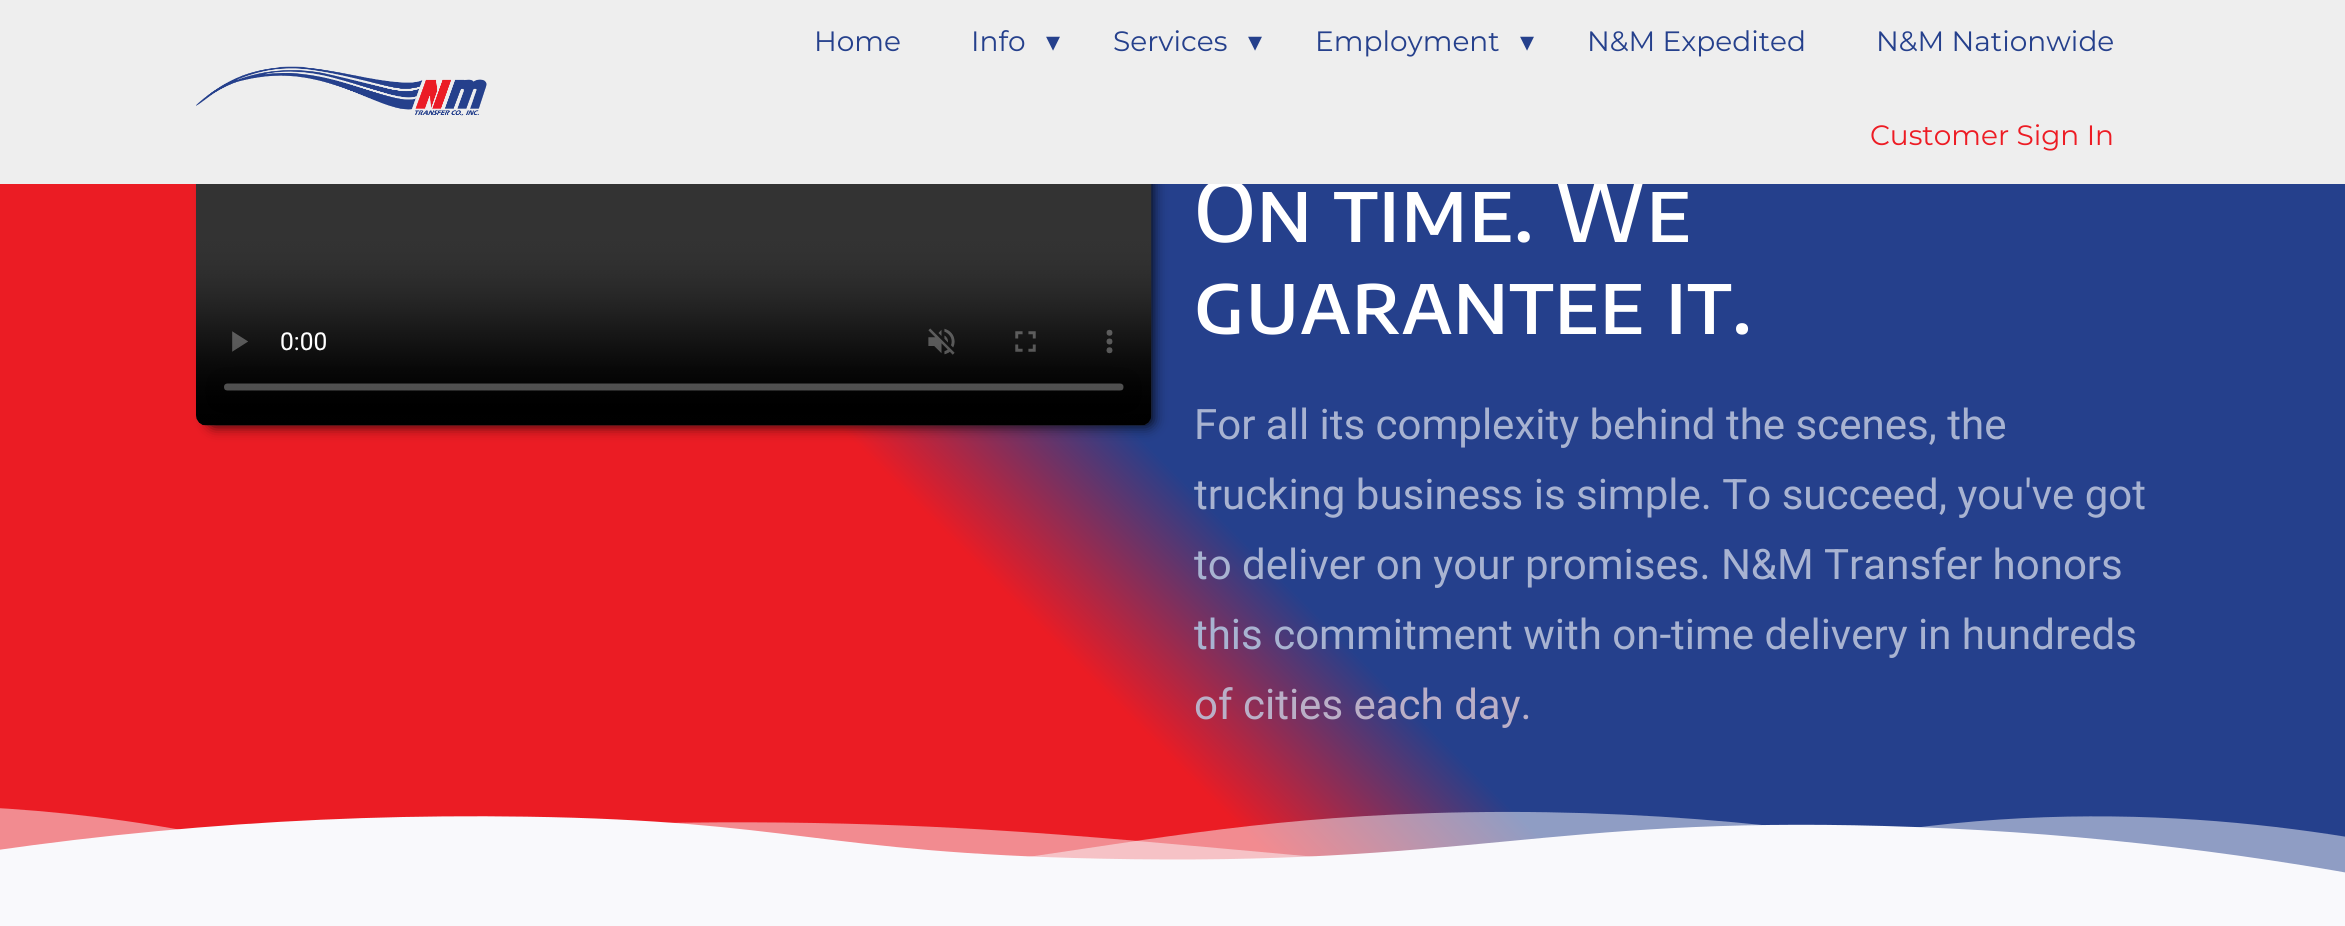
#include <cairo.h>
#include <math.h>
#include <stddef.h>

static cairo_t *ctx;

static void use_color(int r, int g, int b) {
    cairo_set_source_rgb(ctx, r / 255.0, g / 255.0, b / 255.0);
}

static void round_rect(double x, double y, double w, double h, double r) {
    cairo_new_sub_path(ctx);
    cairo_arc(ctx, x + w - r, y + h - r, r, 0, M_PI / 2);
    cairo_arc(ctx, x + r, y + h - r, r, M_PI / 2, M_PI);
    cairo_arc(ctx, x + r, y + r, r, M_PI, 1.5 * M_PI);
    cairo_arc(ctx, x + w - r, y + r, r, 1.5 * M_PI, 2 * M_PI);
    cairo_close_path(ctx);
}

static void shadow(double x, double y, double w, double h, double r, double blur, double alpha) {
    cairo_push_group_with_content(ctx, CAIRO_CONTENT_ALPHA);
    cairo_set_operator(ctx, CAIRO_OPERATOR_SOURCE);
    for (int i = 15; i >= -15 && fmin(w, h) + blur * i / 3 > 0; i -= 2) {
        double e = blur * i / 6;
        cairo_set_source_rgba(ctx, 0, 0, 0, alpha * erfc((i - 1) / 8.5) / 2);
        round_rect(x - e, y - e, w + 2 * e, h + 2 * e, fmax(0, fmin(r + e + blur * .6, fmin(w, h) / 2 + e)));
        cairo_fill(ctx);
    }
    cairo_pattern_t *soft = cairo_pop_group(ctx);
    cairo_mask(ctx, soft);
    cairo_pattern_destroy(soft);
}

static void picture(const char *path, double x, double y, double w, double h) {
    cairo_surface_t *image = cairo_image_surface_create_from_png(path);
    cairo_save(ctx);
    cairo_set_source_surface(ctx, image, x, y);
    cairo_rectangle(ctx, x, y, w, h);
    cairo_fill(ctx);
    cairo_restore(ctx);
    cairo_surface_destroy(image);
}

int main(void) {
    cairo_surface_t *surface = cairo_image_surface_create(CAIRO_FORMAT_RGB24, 2345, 926);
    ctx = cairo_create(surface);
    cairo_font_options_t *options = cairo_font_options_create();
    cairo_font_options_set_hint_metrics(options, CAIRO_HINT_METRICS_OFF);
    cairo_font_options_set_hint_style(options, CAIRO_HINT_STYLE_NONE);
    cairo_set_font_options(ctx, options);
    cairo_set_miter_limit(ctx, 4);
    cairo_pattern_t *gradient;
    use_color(249, 249, 252);
    cairo_paint(ctx);
    gradient = cairo_pattern_create_linear(365, 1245, 1980, -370);
    cairo_pattern_add_color_stop_rgba(gradient, 0.4, 0.922, 0.11, 0.141, 1);
    cairo_pattern_add_color_stop_rgba(gradient, 0.49, 0.145, 0.251, 0.549, 1);
    cairo_set_source(ctx, gradient);
    cairo_pattern_destroy(gradient);
    cairo_rectangle(ctx, 0, 184, 2345, 689);
    cairo_fill(ctx);
    use_color(0, 0, 0);
    shadow(210, 177, 942, 248, 4, 7, 1);
    cairo_select_font_face(ctx, "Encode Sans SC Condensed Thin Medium", CAIRO_FONT_SLANT_NORMAL, CAIRO_FONT_WEIGHT_NORMAL);
    cairo_set_font_size(ctx, 84);
    use_color(255, 255, 255);
    cairo_move_to(ctx, 1194, 242);
    cairo_show_text(ctx, "On time. We");
    use_color(238, 238, 238);
    cairo_rectangle(ctx, 0, 0, 2345, 184);
    cairo_fill(ctx);
    picture("img1.png", 196, 66, 291, 50);
    cairo_select_font_face(ctx, "Montserrat Thin", CAIRO_FONT_SLANT_NORMAL, CAIRO_FONT_WEIGHT_NORMAL);
    cairo_set_font_size(ctx, 28);
    use_color(37, 64, 140);
    cairo_move_to(ctx, 814, 51);
    cairo_show_text(ctx, "Home");
    cairo_move_to(ctx, 971, 51);
    cairo_show_text(ctx, "Info");
    cairo_select_font_face(ctx, "DejaVu Sans", CAIRO_FONT_SLANT_NORMAL, CAIRO_FONT_WEIGHT_NORMAL);
    cairo_move_to(ctx, 1046, 51);
    cairo_show_text(ctx, "▾");
    cairo_select_font_face(ctx, "Montserrat Thin", CAIRO_FONT_SLANT_NORMAL, CAIRO_FONT_WEIGHT_NORMAL);
    cairo_move_to(ctx, 1113, 51);
    cairo_show_text(ctx, "Services");
    cairo_select_font_face(ctx, "DejaVu Sans", CAIRO_FONT_SLANT_NORMAL, CAIRO_FONT_WEIGHT_NORMAL);
    cairo_move_to(ctx, 1248, 51);
    cairo_show_text(ctx, "▾");
    cairo_select_font_face(ctx, "Montserrat Thin", CAIRO_FONT_SLANT_NORMAL, CAIRO_FONT_WEIGHT_NORMAL);
    cairo_move_to(ctx, 1315, 51);
    cairo_show_text(ctx, "Employment");
    cairo_select_font_face(ctx, "DejaVu Sans", CAIRO_FONT_SLANT_NORMAL, CAIRO_FONT_WEIGHT_NORMAL);
    cairo_move_to(ctx, 1520, 51);
    cairo_show_text(ctx, "▾");
    cairo_select_font_face(ctx, "Montserrat Thin", CAIRO_FONT_SLANT_NORMAL, CAIRO_FONT_WEIGHT_NORMAL);
    cairo_move_to(ctx, 1587, 51);
    cairo_show_text(ctx, "N&M Expedited");
    cairo_move_to(ctx, 1876, 51);
    cairo_show_text(ctx, "N&M Nationwide");
    use_color(237, 28, 36);
    cairo_move_to(ctx, 1870, 145);
    cairo_show_text(ctx, "Customer Sign In");
    picture("img2.png", 196, 184, 956, 242);
    cairo_select_font_face(ctx, "Encode Sans SC Condensed Thin Medium", CAIRO_FONT_SLANT_NORMAL, CAIRO_FONT_WEIGHT_NORMAL);
    cairo_set_font_size(ctx, 84);
    use_color(255, 255, 255);
    cairo_move_to(ctx, 1194, 334);
    cairo_show_text(ctx, "guarantee it.");
    cairo_select_font_face(ctx, "Roboto", CAIRO_FONT_SLANT_NORMAL, CAIRO_FONT_WEIGHT_NORMAL);
    cairo_set_font_size(ctx, 42);
    use_color(168, 179, 209);
    cairo_move_to(ctx, 1194, 439);
    cairo_show_text(ctx, "For all its complexity behind the scenes, the");
    cairo_move_to(ctx, 1194, 509);
    cairo_show_text(ctx, "trucking business is simple. To succeed, you've got");
    cairo_move_to(ctx, 1194, 579);
    cairo_show_text(ctx, "to deliver on your promises. N&M Transfer honors");
    cairo_move_to(ctx, 1194, 649);
    cairo_show_text(ctx, "this commitment with on-time delivery in hundreds");
    use_color(186, 175, 199);
    cairo_move_to(ctx, 1194, 719);
    cairo_show_text(ctx, "of cities each day.");
    picture("img3.png", 0, 808, 2345, 72);
    cairo_surface_write_to_png(surface, "result.png");
    cairo_font_options_destroy(options);
    cairo_destroy(ctx);
    cairo_surface_destroy(surface);
    return 0;
}
